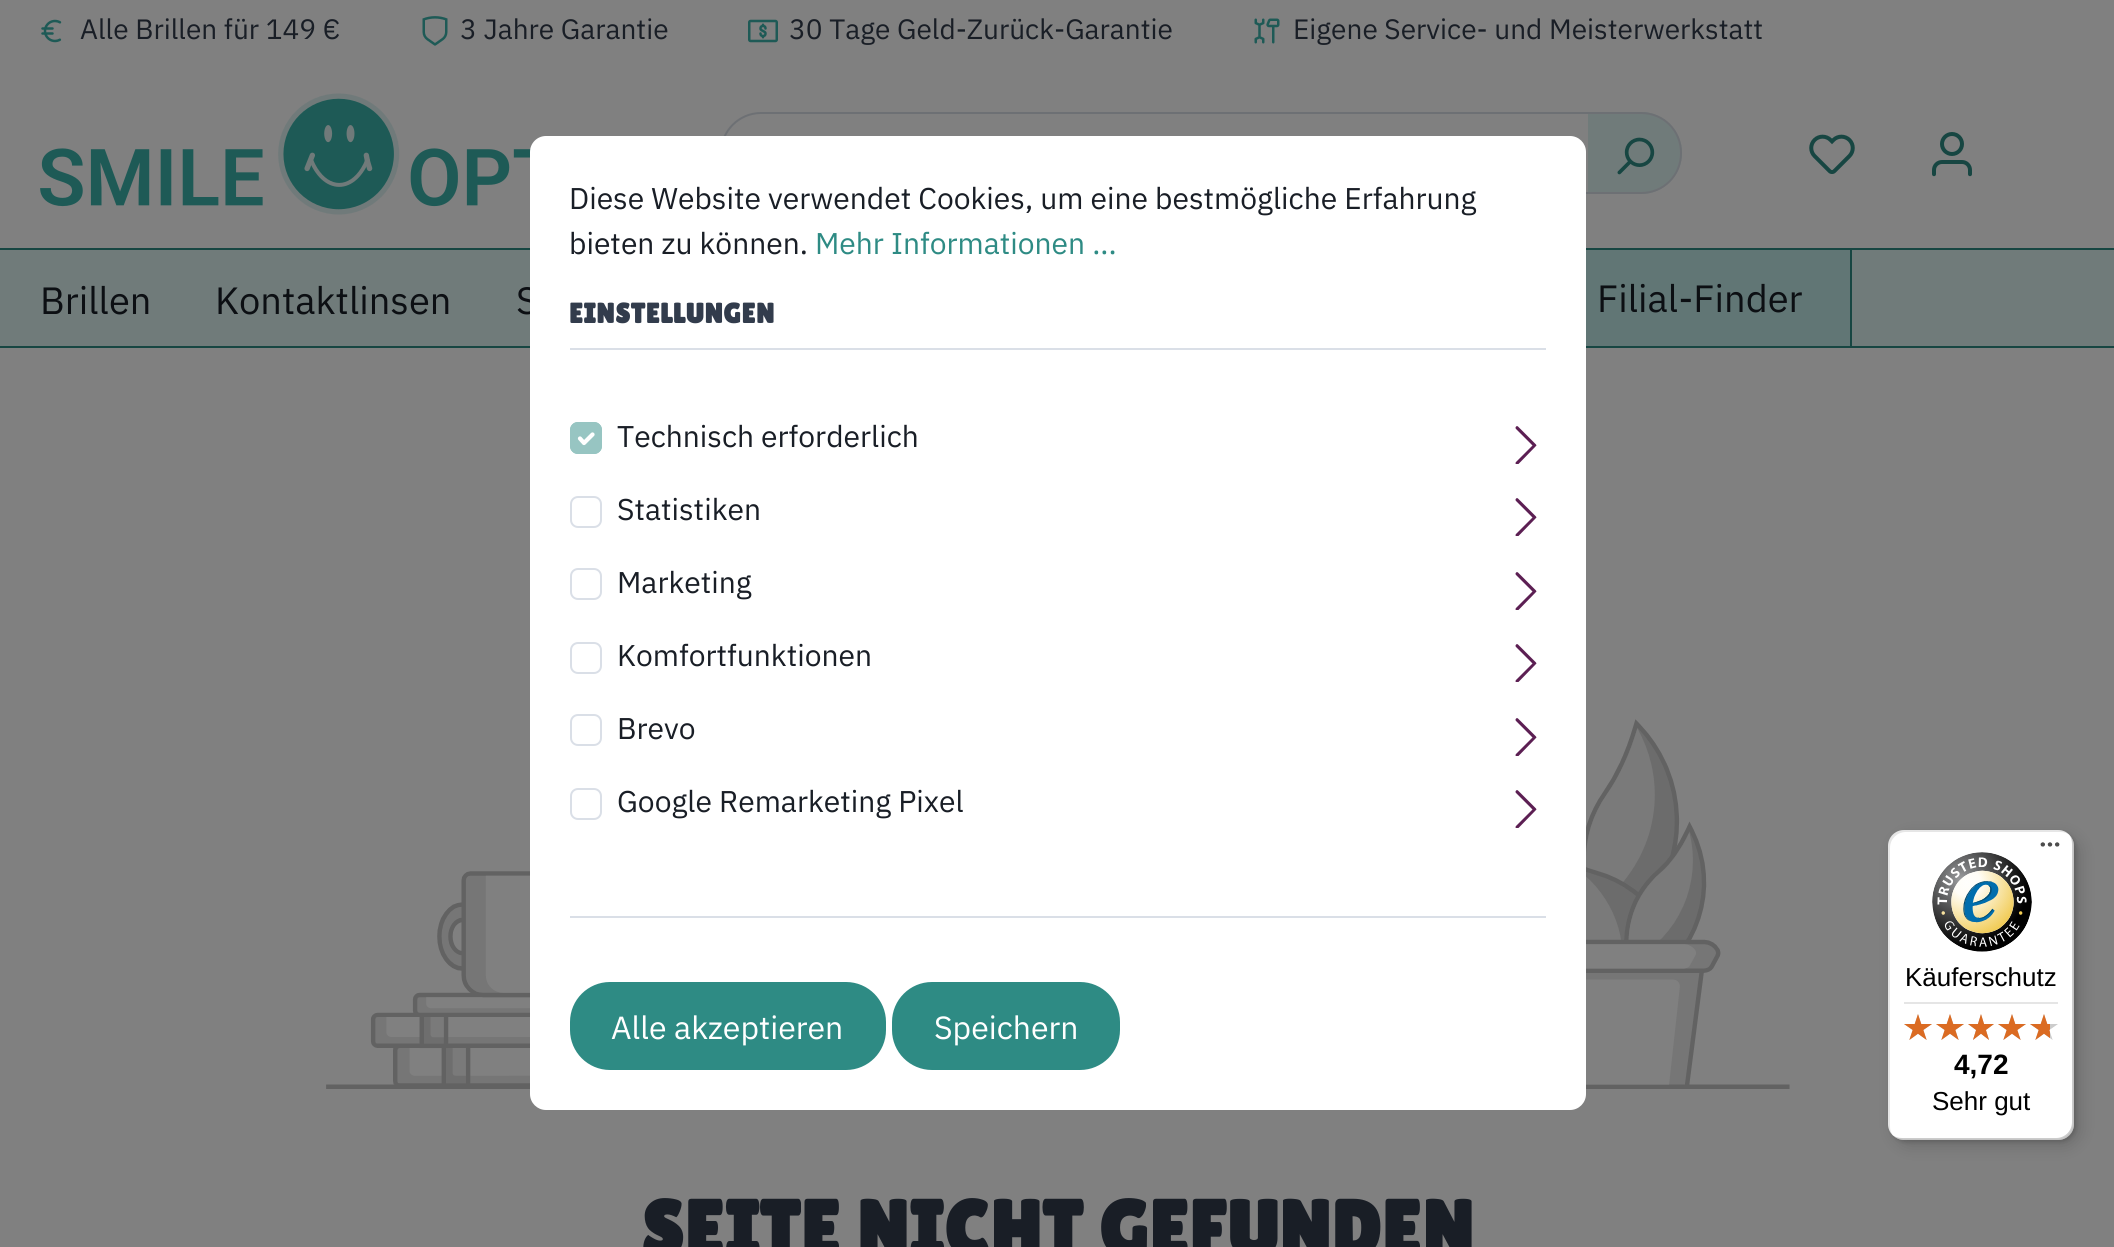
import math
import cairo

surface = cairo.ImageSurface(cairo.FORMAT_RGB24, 2114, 1247)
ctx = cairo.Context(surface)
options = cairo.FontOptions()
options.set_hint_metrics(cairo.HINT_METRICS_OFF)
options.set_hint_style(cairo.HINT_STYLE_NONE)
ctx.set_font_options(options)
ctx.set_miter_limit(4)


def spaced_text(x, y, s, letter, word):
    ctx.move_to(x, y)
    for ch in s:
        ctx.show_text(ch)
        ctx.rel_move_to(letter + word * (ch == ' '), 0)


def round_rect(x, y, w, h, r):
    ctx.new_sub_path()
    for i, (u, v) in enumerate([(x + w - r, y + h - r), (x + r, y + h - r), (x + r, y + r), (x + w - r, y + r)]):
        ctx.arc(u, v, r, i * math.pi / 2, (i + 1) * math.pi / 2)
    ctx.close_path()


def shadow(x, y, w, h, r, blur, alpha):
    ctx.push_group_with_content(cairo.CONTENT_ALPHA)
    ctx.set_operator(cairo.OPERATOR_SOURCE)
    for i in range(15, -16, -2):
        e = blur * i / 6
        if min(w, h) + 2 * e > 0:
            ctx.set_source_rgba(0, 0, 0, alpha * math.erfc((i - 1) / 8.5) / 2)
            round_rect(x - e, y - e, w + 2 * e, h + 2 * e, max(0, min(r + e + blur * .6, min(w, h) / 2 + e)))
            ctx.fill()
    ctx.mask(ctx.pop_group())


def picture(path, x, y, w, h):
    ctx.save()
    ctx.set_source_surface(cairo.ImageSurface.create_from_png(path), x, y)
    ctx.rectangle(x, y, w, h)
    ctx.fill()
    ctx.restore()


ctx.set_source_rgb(0.502, 0.502, 0.502)
ctx.paint()
picture("img1.png", 41, 19, 21, 24)
ctx.select_font_face("IBM Plex Sans")
ctx.set_font_size(28)
ctx.set_source_rgb(0.098, 0.118, 0.149)
ctx.move_to(80, 39)
ctx.show_text("Alle Brillen für 149 €")
picture("img2.png", 422, 16, 26, 30)
ctx.move_to(460, 39)
ctx.show_text("3 Jahre Garantie")
picture("img3.png", 748, 19, 30, 24)
ctx.move_to(789, 39)
ctx.show_text("30 Tage Geld-Zurück-Garantie")
picture("img4.png", 1254, 18, 26, 26)
ctx.move_to(1293, 39)
ctx.show_text("Eigene Service- und Meisterwerkstatt")
picture("img5.png", 40, 93, 491, 122)
ctx.new_path()
ctx.move_to(761, 113)
ctx.line_to(1589, 113)
ctx.line_to(1589, 193)
ctx.line_to(761, 193)
ctx.curve_to(739, 193, 721, 175, 721, 153)
ctx.curve_to(721, 131, 739, 113, 761, 113)
ctx.close_path()
ctx.set_source_rgb(0.427, 0.439, 0.455)
ctx.stroke()
ctx.set_source_rgb(0.439, 0.482, 0.478)
ctx.new_path()
ctx.move_to(1588, 112)
ctx.line_to(1641, 112)
ctx.curve_to(1663.5, 112, 1682, 130.5, 1682, 153)
ctx.curve_to(1682, 175.5, 1663.5, 194, 1641, 194)
ctx.line_to(1588, 194)
ctx.close_path()
ctx.fill()
ctx.set_source_rgb(0.427, 0.439, 0.455)
ctx.set_fill_rule(cairo.FILL_RULE_EVEN_ODD)
ctx.new_path()
ctx.move_to(1588, 112)
ctx.line_to(1641, 112)
ctx.curve_to(1664, 112, 1682, 130, 1682, 153)
ctx.curve_to(1682, 176, 1664, 194, 1641, 194)
ctx.line_to(1588, 194)
ctx.close_path()
ctx.move_to(1588, 114)
ctx.line_to(1641, 114)
ctx.curve_to(1663, 114, 1680, 131, 1680, 153)
ctx.curve_to(1680, 175, 1663, 192, 1641, 192)
ctx.line_to(1588, 192)
ctx.close_path()
ctx.fill()
picture("img6.png", 1617, 137, 38, 38)
picture("img7.png", 1809, 134, 46, 40)
picture("img8.png", 1932, 132, 40, 45)
ctx.set_source_rgb(0.439, 0.482, 0.478)
ctx.rectangle(0, 250, 2114, 96)
ctx.fill()
ctx.set_source_rgb(0.09, 0.275, 0.259)
ctx.rectangle(0, 248, 2114, 2)
ctx.fill()
ctx.rectangle(0, 346, 2114, 2)
ctx.fill()
ctx.set_font_size(38)
ctx.set_source_rgb(0.047, 0.059, 0.075)
ctx.move_to(516, 314)
ctx.show_text("S")
picture("img16.png", 326, 719, 1464, 370)
ctx.set_source_rgb(1, 1, 1)
round_rect(530, 136, 1056, 974, 16)
ctx.fill()
ctx.set_source_rgb(0.855, 0.875, 0.906)
ctx.rectangle(570, 348, 976, 2)
ctx.fill()
ctx.set_font_size(30)
ctx.set_source_rgb(0.098, 0.118, 0.149)
ctx.move_to(569, 209)
ctx.show_text("Diese Website verwendet Cookies, um eine bestmögliche Erfahrung")
ctx.move_to(569, 254)
ctx.show_text("bieten zu können.")
ctx.set_source_rgb(0.18, 0.545, 0.518)
ctx.move_to(815, 254)
ctx.show_text("Mehr Informationen ...")
ctx.select_font_face("Lilita One", cairo.FONT_SLANT_NORMAL, cairo.FONT_WEIGHT_BOLD)
ctx.set_font_size(28)
ctx.set_source_rgb(0.196, 0.235, 0.298)
spaced_text(569, 323, "EINSTELLUNGEN", 0.75, 0)
ctx.set_source_rgb(0.855, 0.875, 0.906)
ctx.rectangle(570, 916, 976, 2)
ctx.fill()
ctx.set_source_rgb(0.592, 0.773, 0.761)
round_rect(570, 422, 32, 32, 8)
ctx.fill()
ctx.new_path()
ctx.move_to(580, 438.5)
ctx.line_to(584, 443)
ctx.line_to(592.5, 434.5)
ctx.set_source_rgb(1, 1, 1)
ctx.set_line_width(4.2)
ctx.set_line_cap(cairo.LINE_CAP_ROUND)
ctx.set_line_join(cairo.LINE_JOIN_ROUND)
ctx.stroke()
round_rect(571, 423, 30, 30, 7)
ctx.set_source_rgb(0.592, 0.773, 0.761)
ctx.set_line_width(2)
ctx.set_line_cap(cairo.LINE_CAP_BUTT)
ctx.set_line_join(cairo.LINE_JOIN_MITER)
ctx.stroke()
ctx.select_font_face("IBM Plex Sans")
ctx.set_font_size(30)
ctx.set_source_rgb(0.098, 0.118, 0.149)
ctx.move_to(617, 447)
ctx.show_text("Technisch erforderlich")
ctx.save()
ctx.set_fill_rule(cairo.FILL_RULE_WINDING)
ctx.rectangle(1508, 426, 38, 38)
ctx.clip()
ctx.set_source_rgb(0.361, 0.122, 0.325)
ctx.set_fill_rule(cairo.FILL_RULE_EVEN_ODD)
ctx.new_path()
ctx.move_to(1532.5, 445.5)
ctx.line_to(1516, 462)
ctx.curve_to(1515, 463, 1515.5, 464.5, 1517, 464.5)
ctx.line_to(1518, 464.5)
ctx.line_to(1536, 446)
ctx.line_to(1536.5, 445.5)
ctx.line_to(1536, 444.5)
ctx.line_to(1518, 426.5)
ctx.line_to(1517, 426)
ctx.curve_to(1515.5, 426.5, 1515, 428, 1516, 429)
ctx.close_path()
ctx.fill()
ctx.restore()
round_rect(571, 497, 30, 30, 7)
ctx.set_source_rgb(0.855, 0.875, 0.906)
ctx.stroke()
ctx.set_source_rgb(0.098, 0.118, 0.149)
ctx.move_to(617, 520)
ctx.show_text("Statistiken")
ctx.save()
ctx.set_fill_rule(cairo.FILL_RULE_WINDING)
ctx.rectangle(1508, 498, 38, 38)
ctx.clip()
ctx.set_source_rgb(0.361, 0.122, 0.325)
ctx.set_fill_rule(cairo.FILL_RULE_EVEN_ODD)
ctx.new_path()
ctx.move_to(1532.5, 517.5)
ctx.line_to(1516, 534)
ctx.curve_to(1515, 535, 1515.5, 536.5, 1517, 536.5)
ctx.line_to(1518, 536.5)
ctx.line_to(1536, 518)
ctx.line_to(1536.5, 517.5)
ctx.line_to(1536, 516.5)
ctx.line_to(1518, 498.5)
ctx.line_to(1517, 498)
ctx.curve_to(1515.5, 498.5, 1515, 500, 1516, 501)
ctx.close_path()
ctx.fill()
ctx.restore()
round_rect(571, 569, 30, 30, 7)
ctx.set_source_rgb(0.855, 0.875, 0.906)
ctx.stroke()
ctx.set_source_rgb(0.098, 0.118, 0.149)
ctx.move_to(617, 593)
ctx.show_text("Marketing")
ctx.save()
ctx.set_fill_rule(cairo.FILL_RULE_WINDING)
ctx.rectangle(1508, 572, 38, 38)
ctx.clip()
ctx.set_source_rgb(0.361, 0.122, 0.325)
ctx.set_fill_rule(cairo.FILL_RULE_EVEN_ODD)
ctx.new_path()
ctx.move_to(1532.5, 591.5)
ctx.line_to(1516, 608)
ctx.curve_to(1515, 609, 1515.5, 610.5, 1517, 610.5)
ctx.line_to(1518, 610.5)
ctx.line_to(1536, 592)
ctx.line_to(1536.5, 591.5)
ctx.line_to(1536, 590.5)
ctx.line_to(1518, 572.5)
ctx.line_to(1517, 572)
ctx.curve_to(1515.5, 572.5, 1515, 574, 1516, 575)
ctx.close_path()
ctx.fill()
ctx.restore()
round_rect(571, 643, 30, 30, 7)
ctx.set_source_rgb(0.855, 0.875, 0.906)
ctx.stroke()
ctx.set_source_rgb(0.098, 0.118, 0.149)
ctx.move_to(617, 666)
ctx.show_text("Komfortfunktionen")
ctx.save()
ctx.set_fill_rule(cairo.FILL_RULE_WINDING)
ctx.rectangle(1508, 644, 38, 38)
ctx.clip()
ctx.set_source_rgb(0.361, 0.122, 0.325)
ctx.set_fill_rule(cairo.FILL_RULE_EVEN_ODD)
ctx.new_path()
ctx.move_to(1532.5, 663.5)
ctx.line_to(1516, 680)
ctx.curve_to(1515, 681, 1515.5, 682.5, 1517, 682.5)
ctx.line_to(1518, 682.5)
ctx.line_to(1536, 664)
ctx.line_to(1536.5, 663.5)
ctx.line_to(1536, 662.5)
ctx.line_to(1518, 644.5)
ctx.line_to(1517, 644)
ctx.curve_to(1515.5, 644.5, 1515, 646, 1516, 647)
ctx.close_path()
ctx.fill()
ctx.restore()
round_rect(571, 715, 30, 30, 7)
ctx.set_source_rgb(0.855, 0.875, 0.906)
ctx.stroke()
ctx.set_source_rgb(0.098, 0.118, 0.149)
ctx.move_to(617, 739)
ctx.show_text("Brevo")
ctx.save()
ctx.set_fill_rule(cairo.FILL_RULE_WINDING)
ctx.rectangle(1508, 718, 38, 38)
ctx.clip()
ctx.set_source_rgb(0.361, 0.122, 0.325)
ctx.set_fill_rule(cairo.FILL_RULE_EVEN_ODD)
ctx.new_path()
ctx.move_to(1532.5, 737.5)
ctx.line_to(1516, 754)
ctx.curve_to(1515, 755, 1515.5, 756.5, 1517, 756.5)
ctx.line_to(1518, 756.5)
ctx.line_to(1536, 738)
ctx.line_to(1536.5, 737.5)
ctx.line_to(1536, 736.5)
ctx.line_to(1518, 718.5)
ctx.line_to(1517, 718)
ctx.curve_to(1515.5, 718.5, 1515, 720, 1516, 721)
ctx.close_path()
ctx.fill()
ctx.restore()
round_rect(571, 789, 30, 30, 7)
ctx.set_source_rgb(0.855, 0.875, 0.906)
ctx.stroke()
ctx.set_source_rgb(0.098, 0.118, 0.149)
ctx.move_to(617, 812)
ctx.show_text("Google Remarketing Pixel")
ctx.save()
ctx.set_fill_rule(cairo.FILL_RULE_WINDING)
ctx.rectangle(1508, 790, 38, 38)
ctx.clip()
ctx.set_source_rgb(0.361, 0.122, 0.325)
ctx.set_fill_rule(cairo.FILL_RULE_EVEN_ODD)
ctx.new_path()
ctx.move_to(1532.5, 809.5)
ctx.line_to(1516, 826)
ctx.curve_to(1515, 827, 1515.5, 828.5, 1517, 828.5)
ctx.line_to(1518, 828.5)
ctx.line_to(1536, 810)
ctx.line_to(1536.5, 809.5)
ctx.line_to(1536, 808.5)
ctx.line_to(1518, 790.5)
ctx.line_to(1517, 790)
ctx.curve_to(1515.5, 790.5, 1515, 792, 1516, 793)
ctx.close_path()
ctx.fill()
ctx.restore()
ctx.set_source_rgb(0.18, 0.545, 0.518)
round_rect(571, 983, 314, 86, 39)
ctx.fill_preserve()
ctx.stroke()
ctx.set_font_size(32)
ctx.set_source_rgb(1, 1, 1)
ctx.move_to(611, 1039)
ctx.show_text("Alle akzeptieren")
ctx.set_source_rgb(0.18, 0.545, 0.518)
round_rect(893, 983, 226, 86, 39)
ctx.fill_preserve()
ctx.stroke()
ctx.set_source_rgb(1, 1, 1)
ctx.move_to(934, 1039)
ctx.show_text("Speichern")
ctx.set_font_size(38)
ctx.set_source_rgb(0.047, 0.059, 0.075)
ctx.move_to(40, 314)
ctx.show_text("Brillen")
ctx.move_to(215, 314)
ctx.show_text("Kontaktlinsen")
ctx.set_source_rgb(0.38, 0.463, 0.459)
ctx.rectangle(1586, 250, 264, 96)
ctx.fill()
ctx.set_source_rgb(0.09, 0.275, 0.259)
ctx.rectangle(1850, 250, 2, 96)
ctx.fill()
ctx.set_source_rgb(0.047, 0.059, 0.075)
ctx.move_to(1597, 312)
ctx.show_text("Filial-Finder")
ctx.set_source_rgb(0, 0, 0)
shadow(1894, 836, 186, 310, 16, 8, 0.15)
shadow(1890, 832, 186, 310, 16, 2, 0.15)
ctx.set_source_rgb(1, 1, 1)
round_rect(1888, 830, 186, 310, 16)
ctx.fill()
ctx.set_source_rgba(0, 0, 0, 0.1)
ctx.set_fill_rule(cairo.FILL_RULE_WINDING)
ctx.new_path()
ctx.move_to(1906, 832)
ctx.line_to(2060, 832)
ctx.curve_to(2064, 832, 2067, 833, 2070, 835)
ctx.curve_to(2067, 832, 2063, 830, 2058, 830)
ctx.line_to(1904, 830)
ctx.curve_to(1895, 830, 1888, 837, 1888, 846)
ctx.line_to(1888, 1124)
ctx.curve_to(1888, 1129, 1890, 1133, 1893, 1136)
ctx.curve_to(1891, 1133, 1890, 1130, 1890, 1126)
ctx.line_to(1890, 848)
ctx.curve_to(1890, 839, 1897, 832, 1906, 832)
ctx.close_path()
ctx.fill()
ctx.set_source_rgba(0, 0, 0, 0.2)
ctx.new_path()
ctx.move_to(1892, 1135)
ctx.curve_to(1895, 1138, 1899, 1140, 1904, 1140)
ctx.line_to(2058, 1140)
ctx.curve_to(2067, 1140, 2074, 1133, 2074, 1124)
ctx.line_to(2074, 846)
ctx.curve_to(2074, 841, 2072, 837, 2069, 834)
ctx.curve_to(2071, 837, 2072, 840, 2072, 844)
ctx.line_to(2072, 1122)
ctx.curve_to(2072, 1131, 2065, 1138, 2056, 1138)
ctx.line_to(1902, 1138)
ctx.curve_to(1898, 1138, 1895, 1137, 1892, 1135)
ctx.close_path()
ctx.fill()
ctx.set_source_rgba(0.196, 0.196, 0.196, 0.2)
ctx.new_path()
ctx.move_to(1893, 1135)
ctx.curve_to(1896, 1138, 1900, 1140, 1904, 1140)
ctx.line_to(2058, 1140)
ctx.curve_to(2067, 1140, 2074, 1133, 2074, 1124)
ctx.line_to(2074, 846)
ctx.curve_to(2074, 842, 2072, 838, 2069, 835)
ctx.curve_to(2072, 838, 2073, 841, 2073, 845)
ctx.line_to(2073, 1123)
ctx.curve_to(2073, 1132, 2066, 1139, 2057, 1139)
ctx.line_to(1903, 1139)
ctx.curve_to(1899, 1139, 1896, 1138, 1893, 1135)
ctx.close_path()
ctx.fill()
ctx.set_source_rgba(1, 1, 1, 0.3)
ctx.new_path()
ctx.move_to(1893, 1135)
ctx.curve_to(1896, 1138, 1900, 1140, 1904, 1140)
ctx.line_to(2058, 1140)
ctx.curve_to(2067, 1140, 2074, 1133, 2074, 1124)
ctx.line_to(2074, 846)
ctx.curve_to(2074, 842, 2072, 838, 2069, 835)
ctx.curve_to(2072, 838, 2073, 841, 2073, 845)
ctx.line_to(2073, 1123)
ctx.curve_to(2073, 1132, 2066, 1139, 2057, 1139)
ctx.line_to(1903, 1139)
ctx.curve_to(1899, 1139, 1896, 1138, 1893, 1135)
ctx.close_path()
ctx.fill()
picture("img9.png", 2040, 842, 20, 5)
picture("img10.png", 1932, 852, 100, 100)
ctx.select_font_face("Liberation Sans")
ctx.set_font_size(26)
ctx.set_source_rgb(0, 0, 0)
ctx.move_to(1905, 986)
ctx.show_text("Käuferschutz")
ctx.set_source_rgb(0.898, 0.898, 0.898)
ctx.rectangle(1904, 1002, 154, 2)
ctx.fill()
picture("img11.png", 1904, 1014, 28, 26)
picture("img11.png", 1936, 1014, 28, 26)
picture("img12.png", 1968, 1014, 26, 26)
picture("img11.png", 1998, 1014, 28, 26)
picture("img11.png", 2030, 1014, 28, 26)
picture("img13.png", 1904, 1014, 28, 26)
picture("img13.png", 1936, 1014, 28, 26)
picture("img14.png", 1968, 1014, 26, 26)
picture("img13.png", 1998, 1014, 28, 26)
picture("img15.png", 2030, 1014, 20, 26)
ctx.select_font_face("Liberation Sans", cairo.FONT_SLANT_NORMAL, cairo.FONT_WEIGHT_BOLD)
ctx.set_font_size(28)
ctx.set_source_rgb(0, 0, 0)
ctx.move_to(1954, 1074)
ctx.show_text("4,72")
ctx.select_font_face("Liberation Sans")
ctx.set_font_size(26)
ctx.move_to(1932, 1110)
ctx.show_text("Sehr gut")
ctx.select_font_face("Lilita One", cairo.FONT_SLANT_NORMAL, cairo.FONT_WEIGHT_BOLD)
ctx.set_font_size(80)
ctx.set_source_rgb(0.098, 0.118, 0.149)
spaced_text(641, 1257, "SEITE NICHT GEFUNDEN", 0.75, 0)
surface.write_to_png("page.png")
